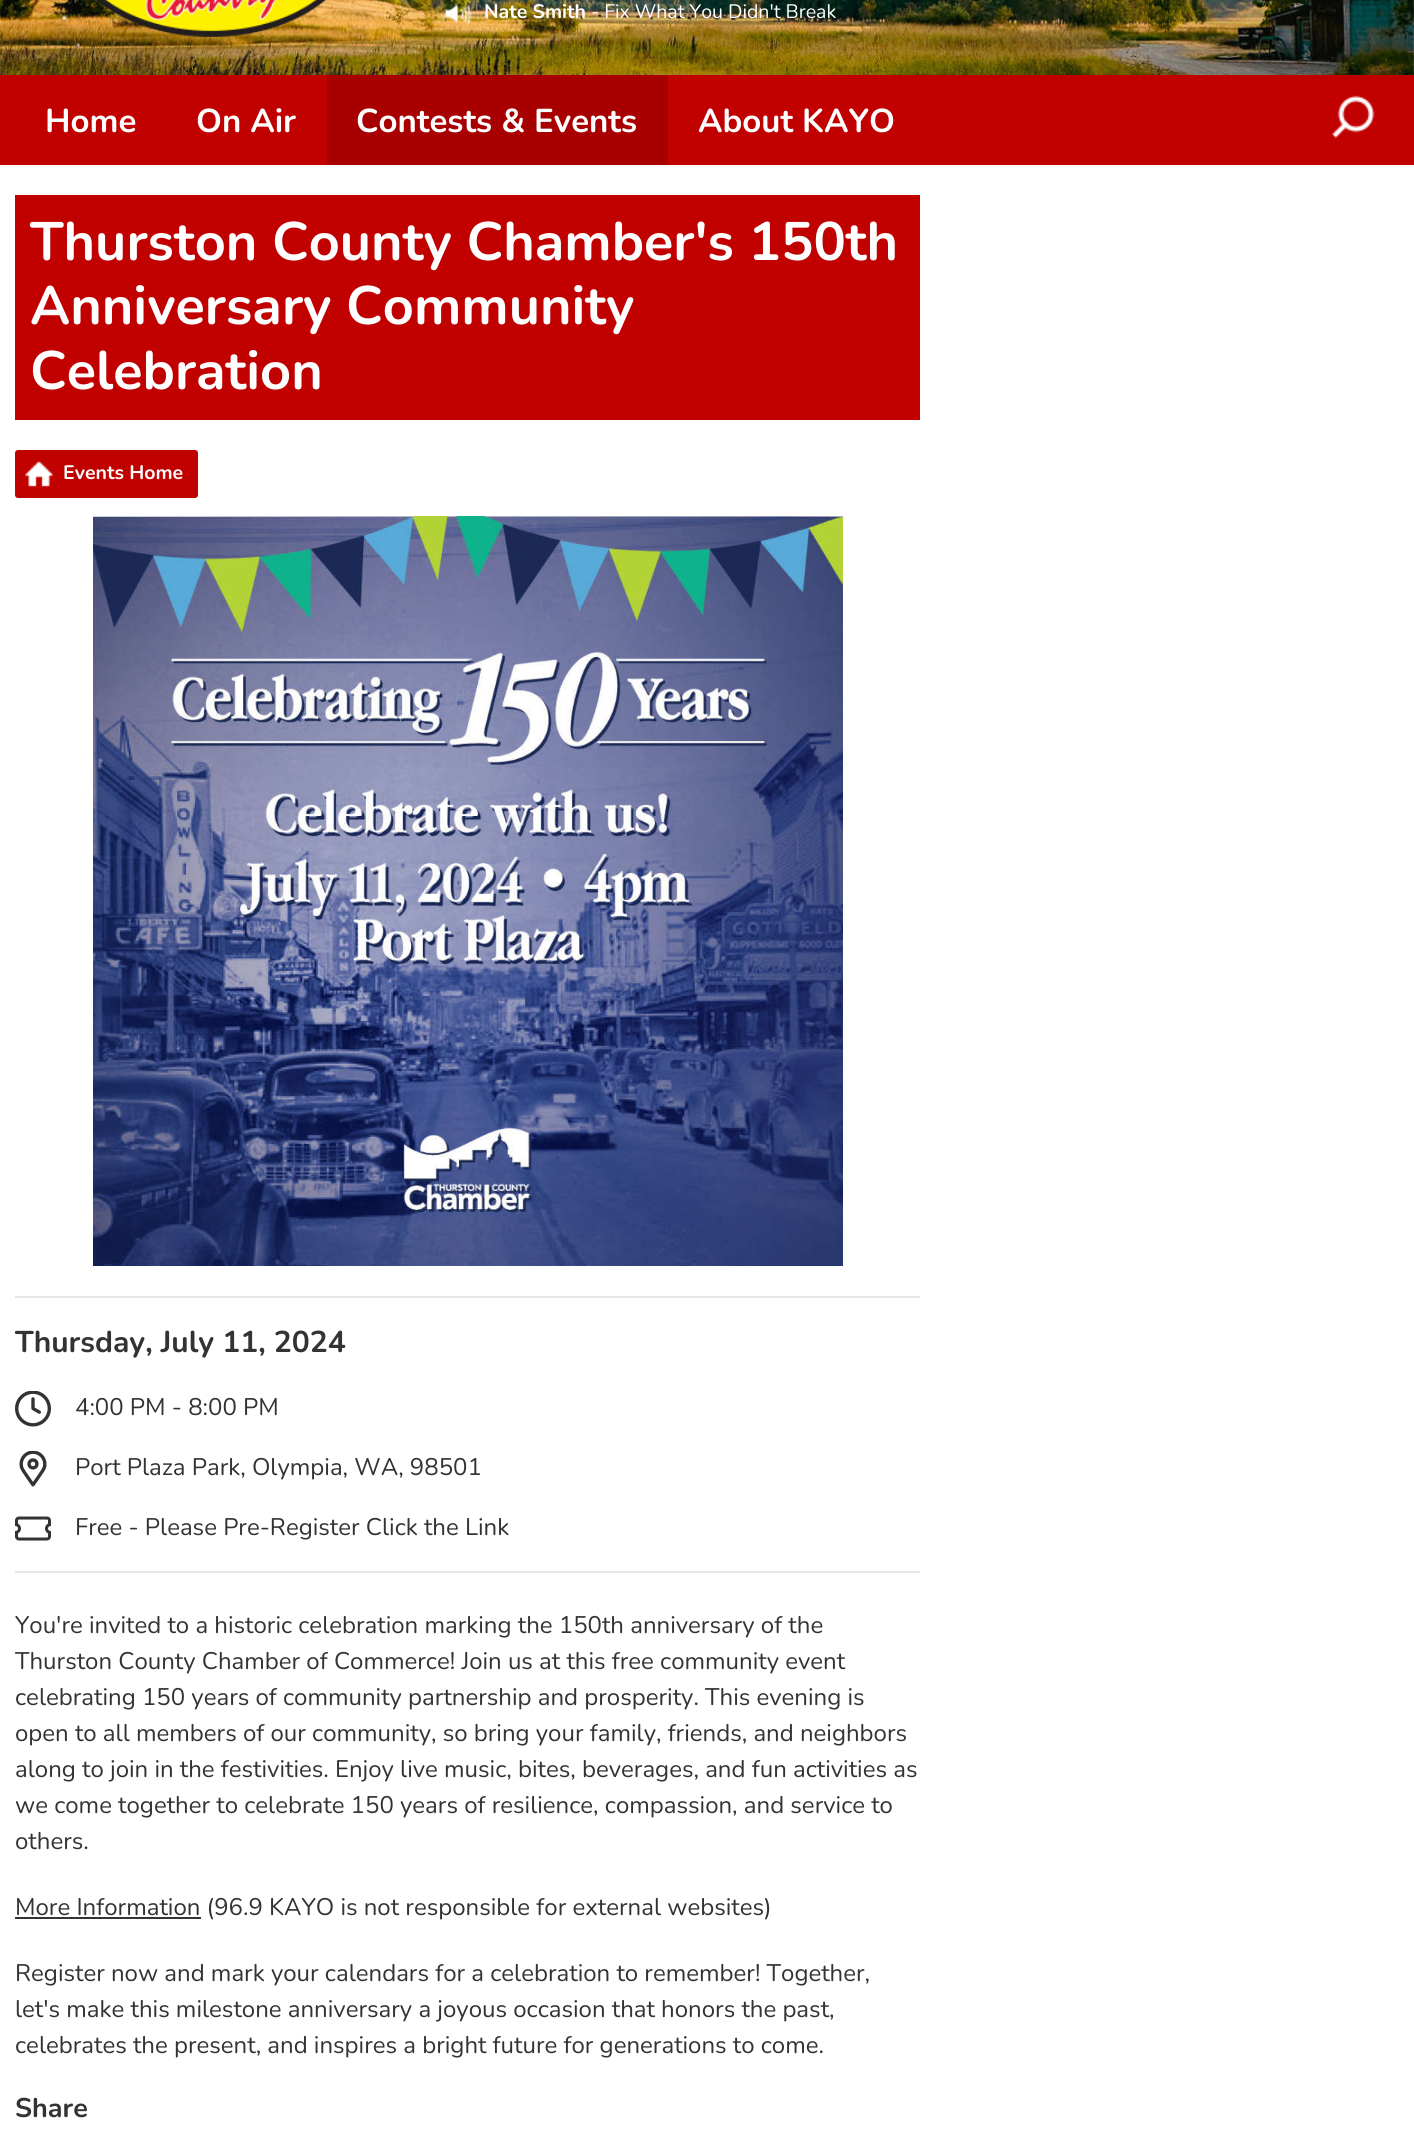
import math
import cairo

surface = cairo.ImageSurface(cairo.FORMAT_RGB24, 1414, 2156)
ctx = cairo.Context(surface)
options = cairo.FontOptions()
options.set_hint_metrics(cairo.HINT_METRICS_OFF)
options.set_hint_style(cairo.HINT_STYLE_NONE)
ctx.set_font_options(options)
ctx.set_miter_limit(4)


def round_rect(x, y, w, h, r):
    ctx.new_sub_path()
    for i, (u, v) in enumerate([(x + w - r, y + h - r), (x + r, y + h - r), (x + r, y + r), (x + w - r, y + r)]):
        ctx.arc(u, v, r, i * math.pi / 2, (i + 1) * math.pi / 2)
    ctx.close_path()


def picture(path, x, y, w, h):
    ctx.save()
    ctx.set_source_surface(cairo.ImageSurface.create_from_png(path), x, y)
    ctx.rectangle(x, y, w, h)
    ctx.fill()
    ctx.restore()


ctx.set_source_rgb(1, 1, 1)
ctx.paint()
picture("img1.png", 0, 0, 1414, 75)
picture("img2.png", 96, 0, 231, 37)
picture("img3.png", 445, 4, 27, 21)
ctx.select_font_face("Nunito", cairo.FONT_SLANT_NORMAL, cairo.FONT_WEIGHT_BOLD)
ctx.set_font_size(19.5)
ctx.set_source_rgb(1, 1, 1)
ctx.move_to(484, 18)
ctx.show_text("Nate Smith")
ctx.select_font_face("Nunito")
ctx.move_to(591, 18)
ctx.show_text("- Fix What You Didn't Break")
ctx.set_source_rgb(0.757, 0, 0)
ctx.rectangle(0, 75, 1414, 90)
ctx.fill()
ctx.select_font_face("Nunito", cairo.FONT_SLANT_NORMAL, cairo.FONT_WEIGHT_BOLD)
ctx.set_font_size(33)
ctx.set_source_rgb(1, 1, 1)
ctx.move_to(45, 132)
ctx.show_text("Home")
ctx.move_to(196, 132)
ctx.show_text("On Air")
ctx.set_source_rgb(0.659, 0, 0)
ctx.rectangle(327, 75, 341, 90)
ctx.fill()
ctx.set_source_rgb(1, 1, 1)
ctx.move_to(356, 132)
ctx.show_text("Contests & Events")
ctx.move_to(698, 132)
ctx.show_text("About KAYO")
picture("img4.png", 1331, 95, 44, 44)
ctx.set_source_rgb(0.757, 0, 0)
ctx.rectangle(15, 195, 905, 225)
ctx.fill()
ctx.set_font_size(54)
ctx.set_source_rgb(1, 1, 1)
ctx.move_to(30, 260)
ctx.show_text("Thurston County Chamber's 150th")
ctx.move_to(30, 324)
ctx.show_text("Anniversary Community")
ctx.move_to(30, 389)
ctx.show_text("Celebration")
ctx.set_source_rgb(0.757, 0, 0)
round_rect(15, 450, 183, 48, 3)
ctx.fill()
picture("img5.png", 25, 461, 28, 26)
ctx.set_font_size(19.5)
ctx.set_source_rgb(1, 1, 1)
ctx.move_to(63, 479)
ctx.show_text("Events Home")
picture("img6.png", 93, 516, 750, 750)
ctx.set_source_rgb(0.902, 0.902, 0.902)
ctx.rectangle(15, 1296, 905, 2)
ctx.fill()
ctx.rectangle(15, 1571, 905, 2)
ctx.fill()
ctx.set_font_size(30)
ctx.set_source_rgb(0.2, 0.2, 0.2)
ctx.move_to(15, 1352)
ctx.show_text("Thursday, July 11, 2024")
picture("img7.png", 15, 1391, 36, 36)
ctx.select_font_face("Nunito")
ctx.set_font_size(24)
ctx.move_to(75, 1415)
ctx.show_text("4:00 PM - 8:00 PM")
picture("img8.png", 19, 1451, 28, 36)
ctx.move_to(75, 1475)
ctx.show_text("Port Plaza Park, Olympia, WA, 98501")
picture("img9.png", 15, 1516, 36, 25)
ctx.move_to(75, 1535)
ctx.show_text("Free - Please Pre-Register Click the Link")
ctx.move_to(15, 1633)
ctx.show_text("You're invited to a historic celebration marking the 150th anniversary of the")
ctx.move_to(15, 1669)
ctx.show_text("Thurston County Chamber of Commerce! Join us at this free community event")
ctx.move_to(15, 1705)
ctx.show_text("celebrating 150 years of community partnership and prosperity. This evening is")
ctx.move_to(15, 1741)
ctx.show_text("open to all members of our community, so bring your family, friends, and neighbors")
ctx.move_to(15, 1777)
ctx.show_text("along to join in the festivities. Enjoy live music, bites, beverages, and fun activities as")
ctx.move_to(15, 1813)
ctx.show_text("we come together to celebrate 150 years of resilience, compassion, and service to")
ctx.move_to(15, 1849)
ctx.show_text("others.")
ctx.rectangle(15, 1917, 186, 2)
ctx.fill()
ctx.move_to(15, 1915)
ctx.show_text("More Information (96.9 KAYO is not responsible for external websites)")
ctx.move_to(15, 1981)
ctx.show_text("Register now and mark your calendars for a celebration to remember! Together,")
ctx.move_to(15, 2017)
ctx.show_text("let's make this milestone anniversary a joyous occasion that honors the past,")
ctx.move_to(15, 2053)
ctx.show_text("celebrates the present, and inspires a bright future for generations to come.")
ctx.select_font_face("Nunito", cairo.FONT_SLANT_NORMAL, cairo.FONT_WEIGHT_BOLD)
ctx.set_font_size(27)
ctx.move_to(15, 2117)
ctx.show_text("Share")
surface.write_to_png("page.png")
